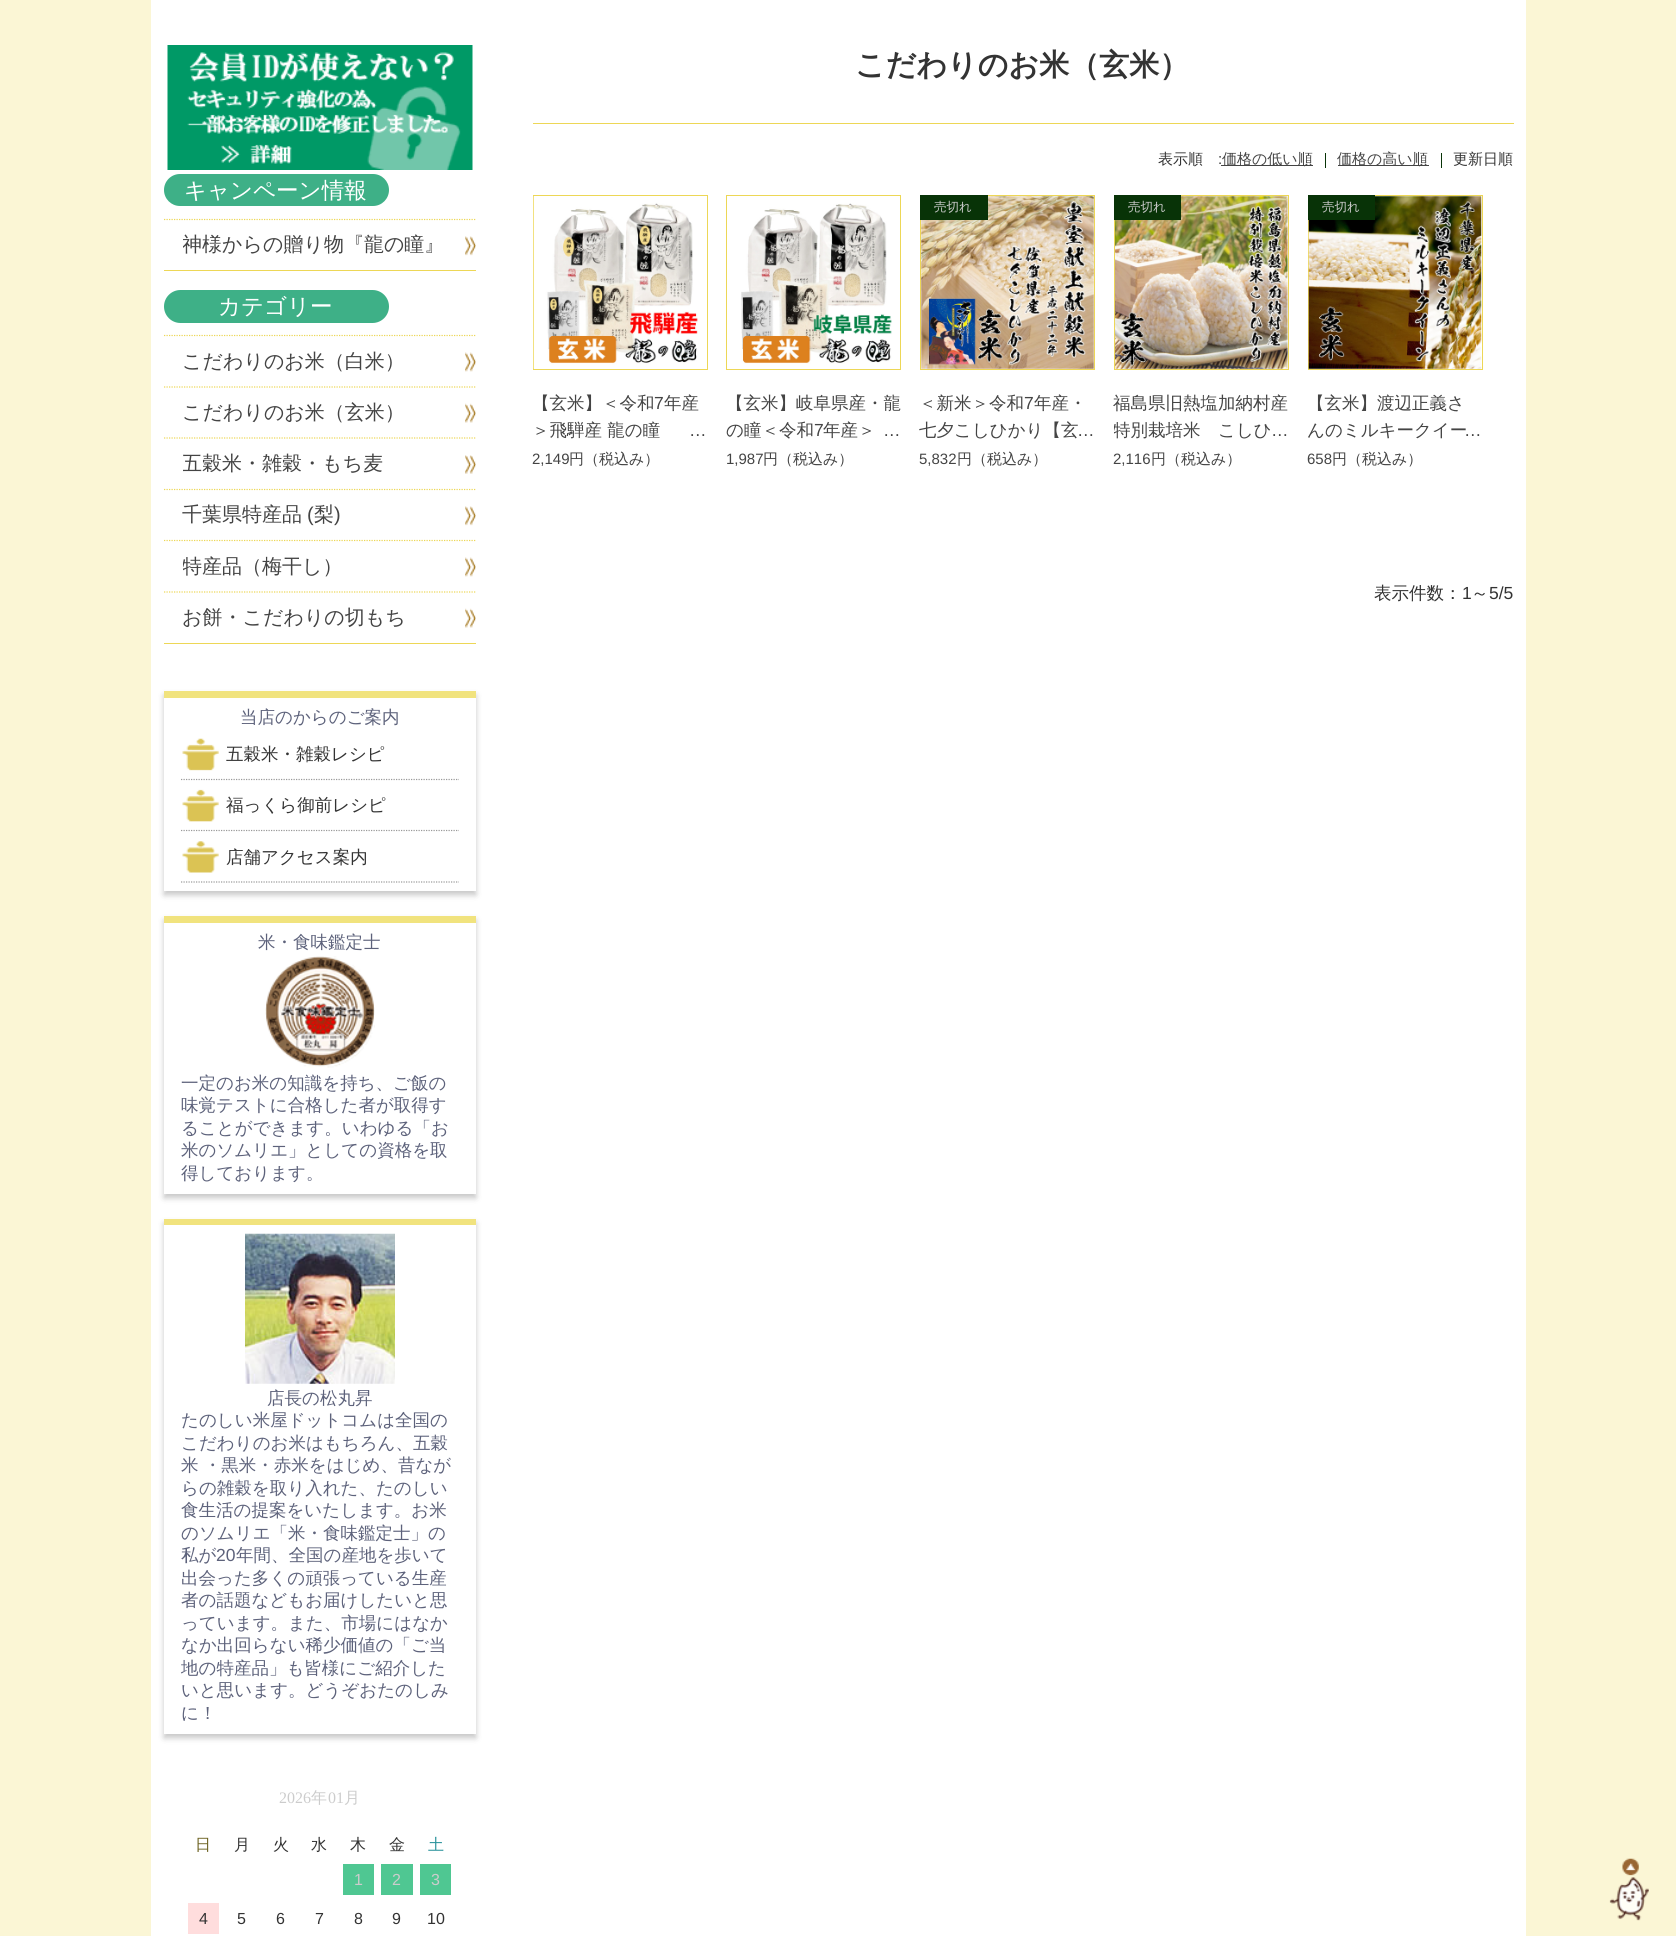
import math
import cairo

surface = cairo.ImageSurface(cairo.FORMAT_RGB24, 1676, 1936)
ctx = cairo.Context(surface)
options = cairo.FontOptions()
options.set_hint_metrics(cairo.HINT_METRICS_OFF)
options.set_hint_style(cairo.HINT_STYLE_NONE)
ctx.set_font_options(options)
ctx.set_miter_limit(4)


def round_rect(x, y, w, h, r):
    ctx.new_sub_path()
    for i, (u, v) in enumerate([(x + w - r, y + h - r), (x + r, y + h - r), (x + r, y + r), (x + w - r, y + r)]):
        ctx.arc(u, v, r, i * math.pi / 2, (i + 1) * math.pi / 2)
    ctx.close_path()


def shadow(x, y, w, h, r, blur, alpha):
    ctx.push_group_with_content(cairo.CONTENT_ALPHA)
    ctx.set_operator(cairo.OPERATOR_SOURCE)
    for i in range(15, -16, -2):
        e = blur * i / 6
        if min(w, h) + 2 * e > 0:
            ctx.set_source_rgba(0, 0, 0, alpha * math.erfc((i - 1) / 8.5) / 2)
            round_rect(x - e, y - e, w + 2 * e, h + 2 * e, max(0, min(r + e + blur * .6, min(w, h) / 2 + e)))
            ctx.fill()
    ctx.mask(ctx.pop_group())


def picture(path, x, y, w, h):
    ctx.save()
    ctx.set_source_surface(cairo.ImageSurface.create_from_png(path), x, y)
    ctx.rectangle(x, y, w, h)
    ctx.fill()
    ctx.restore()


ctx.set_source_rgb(0.984, 0.961, 0.835)
ctx.paint()
ctx.set_source_rgb(1, 1, 1)
ctx.rectangle(151, 0, 1375, 1936)
ctx.fill()
picture("img1.png", 167, 45, 306, 125)
ctx.set_source_rgb(0.929, 0.843, 0.337)
ctx.rectangle(164, 270, 312, 1)
ctx.fill()
ctx.set_source_rgb(0.243, 0.69, 0.529)
round_rect(164, 174, 225, 32, 16)
ctx.fill()
ctx.select_font_face("WenQuanYi Zen Hei Medium")
ctx.set_font_size(22.5)
ctx.set_source_rgb(1, 1, 1)
ctx.move_to(184, 198)
ctx.show_text("キャンペーン情報")
ctx.new_path()
ctx.move_to(164, 219.5)
ctx.line_to(476, 219.5)
ctx.set_source_rgb(0.929, 0.843, 0.337)
ctx.set_line_width(1.2)
ctx.set_dash([1.25, 1.25])
ctx.stroke()
ctx.save()
ctx.rectangle(183, 220, 293, 50)
ctx.clip()
ctx.set_font_size(20)
ctx.set_source_rgb(0.267, 0.267, 0.267)
ctx.move_to(182, 251)
ctx.show_text("神様からの贈り物『龍の瞳』")
ctx.restore()
picture("img2.png", 465, 236, 11, 20)
ctx.rectangle(164, 643, 312, 1)
ctx.fill()
ctx.set_source_rgb(0.243, 0.69, 0.529)
round_rect(164, 290, 225, 33, 16.5)
ctx.fill()
ctx.set_source_rgb(1, 1, 1)
ctx.move_to(218, 314)
ctx.show_text("カテゴリー")
ctx.new_path()
ctx.move_to(164, 335.5)
ctx.line_to(476, 335.5)
ctx.set_source_rgb(0.929, 0.843, 0.337)
ctx.stroke()
ctx.set_font_size(20)
ctx.set_source_rgb(0.267, 0.267, 0.267)
ctx.move_to(182, 368)
ctx.show_text("こだわりのお米（白米）")
picture("img3.png", 465, 352, 11, 20)
ctx.new_path()
ctx.move_to(164, 387)
ctx.line_to(476, 387)
ctx.set_source_rgb(0.929, 0.843, 0.337)
ctx.stroke()
ctx.set_source_rgb(0.267, 0.267, 0.267)
ctx.move_to(182, 419)
ctx.show_text("こだわりのお米（玄米）")
picture("img4.png", 465, 403, 11, 20)
ctx.new_path()
ctx.move_to(164, 438)
ctx.line_to(476, 438)
ctx.set_source_rgb(0.929, 0.843, 0.337)
ctx.stroke()
ctx.save()
ctx.rectangle(183, 439, 293, 50)
ctx.clip()
ctx.set_source_rgb(0.267, 0.267, 0.267)
ctx.move_to(182, 470)
ctx.show_text("五穀米・雑穀・もち麦")
ctx.restore()
picture("img5.png", 465, 455, 11, 19)
ctx.new_path()
ctx.move_to(164, 489.5)
ctx.line_to(476, 489.5)
ctx.stroke()
ctx.set_source_rgb(0.267, 0.267, 0.267)
ctx.move_to(182, 521)
ctx.show_text("千葉県特産品")
ctx.select_font_face("Liberation Sans")
ctx.move_to(307, 521)
ctx.show_text("(")
ctx.select_font_face("WenQuanYi Zen Hei Medium")
ctx.move_to(314, 521)
ctx.show_text("梨")
ctx.select_font_face("Liberation Sans")
ctx.move_to(334, 521)
ctx.show_text(")")
picture("img2.png", 465, 506, 11, 20)
ctx.new_path()
ctx.move_to(164, 540.5)
ctx.line_to(476, 540.5)
ctx.set_source_rgb(0.929, 0.843, 0.337)
ctx.stroke()
ctx.save()
ctx.rectangle(183, 541, 293, 50)
ctx.clip()
ctx.select_font_face("WenQuanYi Zen Hei Medium")
ctx.set_source_rgb(0.267, 0.267, 0.267)
ctx.move_to(182, 573)
ctx.show_text("特産品（梅干し）")
ctx.restore()
picture("img3.png", 465, 557, 11, 20)
ctx.new_path()
ctx.move_to(164, 592)
ctx.line_to(476, 592)
ctx.stroke()
ctx.select_font_face("WenQuanYi Zen Hei Medium")
ctx.set_source_rgb(0.267, 0.267, 0.267)
ctx.move_to(182, 624)
ctx.show_text("お餅・こだわりの切もち")
picture("img4.png", 465, 608, 11, 20)
ctx.save()
ctx.set_fill_rule(cairo.FILL_RULE_EVEN_ODD)
ctx.new_path()
ctx.move_to(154, 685)
ctx.line_to(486, 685)
ctx.line_to(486, 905)
ctx.line_to(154, 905)
ctx.close_path()
ctx.move_to(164, 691)
ctx.line_to(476, 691)
ctx.line_to(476, 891)
ctx.line_to(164, 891)
ctx.close_path()
ctx.clip()
ctx.set_source_rgb(0, 0, 0)
shadow(164, 695, 312, 200, 0, 3, 0.22)
ctx.restore()
ctx.set_source_rgb(0.945, 0.89, 0.494)
ctx.rectangle(164, 691, 312, 7)
ctx.fill()
ctx.set_font_size(17.5)
ctx.set_source_rgb(0.365, 0.384, 0.482)
ctx.move_to(240, 723)
ctx.show_text("当店のからのご案内")
picture("img6.png", 182, 738, 37, 33)
ctx.new_path()
ctx.move_to(181, 779.5)
ctx.line_to(459, 779.5)
ctx.set_source_rgb(0.6, 0.6, 0.6)
ctx.stroke()
ctx.set_source_rgb(0.2, 0.2, 0.2)
ctx.move_to(226, 760)
ctx.show_text("五穀米・雑穀レシピ")
picture("img7.png", 182, 789, 37, 33)
ctx.new_path()
ctx.move_to(181, 830.5)
ctx.line_to(459, 830.5)
ctx.set_source_rgb(0.6, 0.6, 0.6)
ctx.stroke()
ctx.set_source_rgb(0.2, 0.2, 0.2)
ctx.move_to(226, 811)
ctx.show_text("福っくら御前レシピ")
picture("img8.png", 182, 841, 37, 32)
ctx.new_path()
ctx.move_to(181, 882)
ctx.line_to(459, 882)
ctx.set_source_rgb(0.6, 0.6, 0.6)
ctx.stroke()
ctx.set_source_rgb(0.2, 0.2, 0.2)
ctx.move_to(226, 863)
ctx.show_text("店舗アクセス案内")
ctx.save()
ctx.set_fill_rule(cairo.FILL_RULE_EVEN_ODD)
ctx.new_path()
ctx.move_to(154, 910)
ctx.line_to(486, 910)
ctx.line_to(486, 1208)
ctx.line_to(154, 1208)
ctx.close_path()
ctx.move_to(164, 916)
ctx.line_to(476, 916)
ctx.line_to(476, 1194)
ctx.line_to(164, 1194)
ctx.close_path()
ctx.clip()
ctx.set_source_rgb(0, 0, 0)
shadow(164, 920, 312, 278, 0, 3, 0.22)
ctx.restore()
ctx.set_source_rgb(0.945, 0.89, 0.494)
ctx.rectangle(164, 916, 312, 7)
ctx.fill()
ctx.set_source_rgb(0.365, 0.384, 0.482)
ctx.move_to(258, 948)
ctx.show_text("米・食味鑑定士")
picture("img9.png", 265, 956, 110, 112)
ctx.move_to(181, 1089)
ctx.show_text("一定のお米の知識を持ち、ご飯の")
ctx.move_to(181, 1111)
ctx.show_text("味覚テストに合格した者が取得す")
ctx.move_to(181, 1134)
ctx.show_text("ることができます。いわゆる「お")
ctx.move_to(181, 1156)
ctx.show_text("米のソムリエ」としての資格を取")
ctx.move_to(181, 1179)
ctx.show_text("得しております。")
ctx.save()
ctx.set_fill_rule(cairo.FILL_RULE_EVEN_ODD)
ctx.new_path()
ctx.move_to(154, 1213)
ctx.line_to(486, 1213)
ctx.line_to(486, 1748)
ctx.line_to(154, 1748)
ctx.close_path()
ctx.move_to(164, 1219)
ctx.line_to(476, 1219)
ctx.line_to(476, 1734)
ctx.line_to(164, 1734)
ctx.close_path()
ctx.clip()
ctx.set_source_rgb(0, 0, 0)
shadow(164, 1223, 312, 515, 0, 3, 0.22)
ctx.restore()
ctx.set_source_rgb(0.945, 0.89, 0.494)
ctx.rectangle(164, 1219, 312, 6)
ctx.fill()
picture("img10.png", 245, 1233, 150, 151)
ctx.set_source_rgb(0.365, 0.384, 0.482)
ctx.move_to(267, 1404)
ctx.show_text("店長の松丸昇")
ctx.move_to(181, 1426)
ctx.show_text("たのしい米屋ドットコムは全国の")
ctx.move_to(181, 1449)
ctx.show_text("こだわりのお米はもちろん、五穀")
ctx.move_to(181, 1471)
ctx.show_text("米 ・黒米・赤米をはじめ、昔なが")
ctx.move_to(181, 1494)
ctx.show_text("らの雑穀を取り入れた、たのしい")
ctx.move_to(181, 1516)
ctx.show_text("食生活の提案をいたします。お米")
ctx.move_to(181, 1539)
ctx.show_text("のソムリエ「米・食味鑑定士」の")
ctx.move_to(181, 1561)
ctx.show_text("私が")
ctx.select_font_face("Liberation Sans")
ctx.move_to(216, 1561)
ctx.show_text("20")
ctx.select_font_face("WenQuanYi Zen Hei Medium")
ctx.move_to(236, 1561)
ctx.show_text("年間、全国の産地を歩いて")
ctx.move_to(181, 1584)
ctx.show_text("出会った多くの頑張っている生産")
ctx.move_to(181, 1606)
ctx.show_text("者の話題などもお届けしたいと思")
ctx.move_to(181, 1629)
ctx.show_text("っています。また、市場にはなか")
ctx.move_to(181, 1651)
ctx.show_text("なか出回らない稀少価値の「ご当")
ctx.move_to(181, 1674)
ctx.show_text("地の特産品」も皆様にご紹介した")
ctx.move_to(181, 1696)
ctx.show_text("いと思います。どうぞおたのしみ")
ctx.move_to(181, 1719)
ctx.show_text("に！")
ctx.select_font_face("Liberation Serif")
ctx.set_font_size(16)
ctx.set_source_rgb(0.8, 0.8, 0.8)
ctx.move_to(279, 1803)
ctx.show_text("2026")
ctx.select_font_face("WenQuanYi Zen Hei Medium")
ctx.move_to(311, 1803)
ctx.show_text("年")
ctx.select_font_face("Liberation Serif")
ctx.move_to(328, 1803)
ctx.show_text("01")
ctx.select_font_face("WenQuanYi Zen Hei Medium")
ctx.move_to(344, 1803)
ctx.show_text("月")
ctx.set_source_rgb(0.431, 0.392, 0.141)
ctx.move_to(195, 1850)
ctx.show_text("日")
ctx.set_source_rgb(0.2, 0.2, 0.2)
ctx.move_to(234, 1850)
ctx.show_text("月")
ctx.move_to(273, 1850)
ctx.show_text("火")
ctx.move_to(311, 1850)
ctx.show_text("水")
ctx.move_to(350, 1850)
ctx.show_text("木")
ctx.move_to(389, 1850)
ctx.show_text("金")
ctx.set_source_rgb(0.165, 0.573, 0.608)
ctx.move_to(428, 1850)
ctx.show_text("土")
ctx.set_source_rgb(0.31, 0.78, 0.573)
ctx.rectangle(343, 1864, 31, 31)
ctx.fill()
ctx.select_font_face("Liberation Sans")
ctx.set_source_rgb(0.8, 0.8, 0.8)
ctx.move_to(354, 1885)
ctx.show_text("1")
ctx.set_source_rgb(0.31, 0.78, 0.573)
ctx.rectangle(381, 1864, 32, 31)
ctx.fill()
ctx.set_source_rgb(0.8, 0.8, 0.8)
ctx.move_to(392, 1885)
ctx.show_text("2")
ctx.set_source_rgb(0.31, 0.78, 0.573)
ctx.rectangle(420, 1864, 31, 31)
ctx.fill()
ctx.set_source_rgb(0.8, 0.8, 0.8)
ctx.move_to(431, 1885)
ctx.show_text("3")
ctx.set_source_rgb(1, 0.867, 0.867)
ctx.rectangle(188, 1903, 31, 31)
ctx.fill()
ctx.set_source_rgb(0.2, 0.2, 0.2)
ctx.move_to(199, 1924)
ctx.show_text("4")
ctx.move_to(237, 1924)
ctx.show_text("5")
ctx.move_to(276, 1924)
ctx.show_text("6")
ctx.move_to(315, 1924)
ctx.show_text("7")
ctx.move_to(354, 1924)
ctx.show_text("8")
ctx.move_to(392, 1924)
ctx.show_text("9")
ctx.move_to(427, 1924)
ctx.show_text("10")
ctx.select_font_face("WenQuanYi Zen Hei", cairo.FONT_SLANT_NORMAL, cairo.FONT_WEIGHT_BOLD)
ctx.set_font_size(30)
ctx.move_to(855, 75)
ctx.show_text("こだわりのお米（玄米）")
ctx.set_source_rgb(0.929, 0.843, 0.337)
ctx.rectangle(533, 123, 981, 1)
ctx.fill()
ctx.select_font_face("WenQuanYi Zen Hei Medium")
ctx.set_font_size(15)
ctx.set_source_rgb(0.2, 0.2, 0.2)
ctx.move_to(1158, 164)
ctx.show_text("表示順")
ctx.select_font_face("Liberation Sans")
ctx.move_to(1218, 164)
ctx.show_text(":")
ctx.set_source_rgb(0.267, 0.267, 0.267)
ctx.rectangle(1221, 165, 92, 1)
ctx.fill()
ctx.select_font_face("WenQuanYi Zen Hei Medium")
ctx.move_to(1222, 164)
ctx.show_text("価格の低い順")
ctx.set_source_rgb(0.035, 0.2, 0.031)
ctx.rectangle(1325, 153, 1, 15)
ctx.fill()
ctx.set_source_rgb(0.267, 0.267, 0.267)
ctx.rectangle(1338, 165, 91, 1)
ctx.fill()
ctx.move_to(1337, 164)
ctx.show_text("価格の高い順")
ctx.set_source_rgb(0.035, 0.2, 0.031)
ctx.rectangle(1441, 153, 1, 15)
ctx.fill()
ctx.set_source_rgb(0.2, 0.2, 0.2)
ctx.move_to(1453, 164)
ctx.show_text("更新日順")
ctx.rectangle(533.5, 195.5, 174, 174)
ctx.set_source_rgb(0.929, 0.843, 0.337)
ctx.set_line_width(1)
ctx.set_dash([])
ctx.stroke()
picture("img11.png", 533, 196, 165, 173)
ctx.set_font_size(17.5)
ctx.set_source_rgb(0.267, 0.267, 0.267)
ctx.move_to(532, 409)
ctx.show_text("【玄米】＜令和")
ctx.select_font_face("Liberation Sans")
ctx.move_to(654, 409)
ctx.show_text("7")
ctx.select_font_face("WenQuanYi Zen Hei Medium")
ctx.move_to(664, 409)
ctx.show_text("年産")
ctx.move_to(532, 436)
ctx.show_text("＞飛騨産 龍の瞳")
ctx.select_font_face("Liberation Sans")
ctx.move_to(689, 436)
ctx.show_text("…")
ctx.set_font_size(15)
ctx.move_to(532, 464)
ctx.show_text("2,149")
ctx.select_font_face("WenQuanYi Zen Hei Medium")
ctx.move_to(569, 464)
ctx.show_text("円（税込み）")
ctx.rectangle(726.5, 195.5, 174, 174)
ctx.set_source_rgb(0.929, 0.843, 0.337)
ctx.stroke()
picture("img12.png", 741, 203, 151, 161)
ctx.set_font_size(17.5)
ctx.set_source_rgb(0.267, 0.267, 0.267)
ctx.move_to(726, 409)
ctx.show_text("【玄米】岐阜県産・龍")
ctx.move_to(726, 436)
ctx.show_text("の瞳＜令和")
ctx.select_font_face("Liberation Sans")
ctx.move_to(814, 436)
ctx.show_text("7")
ctx.select_font_face("WenQuanYi Zen Hei Medium")
ctx.move_to(823, 436)
ctx.show_text("年産＞")
ctx.select_font_face("Liberation Sans")
ctx.move_to(883, 436)
ctx.show_text("…")
ctx.set_font_size(15)
ctx.move_to(726, 464)
ctx.show_text("1,987")
ctx.select_font_face("WenQuanYi Zen Hei Medium")
ctx.move_to(763, 464)
ctx.show_text("円（税込み）")
ctx.rectangle(920.5, 195.5, 174, 174)
ctx.set_source_rgb(0.929, 0.843, 0.337)
ctx.stroke()
picture("img13.png", 921, 196, 173, 173)
ctx.set_source_rgb(0.035, 0.2, 0.031)
ctx.rectangle(920, 195, 68, 25)
ctx.fill()
ctx.set_font_size(12.5)
ctx.set_source_rgb(0.8, 0.8, 0.8)
ctx.move_to(934, 211)
ctx.show_text("売切れ")
ctx.set_font_size(17.5)
ctx.set_source_rgb(0.267, 0.267, 0.267)
ctx.move_to(919, 409)
ctx.show_text("＜新米＞令和")
ctx.select_font_face("Liberation Sans")
ctx.move_to(1024, 409)
ctx.show_text("7")
ctx.select_font_face("WenQuanYi Zen Hei Medium")
ctx.move_to(1034, 409)
ctx.show_text("年産・")
ctx.move_to(919, 436)
ctx.show_text("七夕こしひかり【玄")
ctx.select_font_face("Liberation Sans")
ctx.move_to(1077, 436)
ctx.show_text("…")
ctx.set_font_size(15)
ctx.move_to(919, 464)
ctx.show_text("5,832")
ctx.select_font_face("WenQuanYi Zen Hei Medium")
ctx.move_to(957, 464)
ctx.show_text("円（税込み）")
ctx.rectangle(1114.5, 195.5, 174, 174)
ctx.set_source_rgb(0.929, 0.843, 0.337)
ctx.stroke()
picture("img14.png", 1115, 196, 173, 173)
ctx.set_source_rgb(0.035, 0.2, 0.031)
ctx.rectangle(1114, 195, 67, 25)
ctx.fill()
ctx.set_font_size(12.5)
ctx.set_source_rgb(0.8, 0.8, 0.8)
ctx.move_to(1128, 211)
ctx.show_text("売切れ")
ctx.set_font_size(17.5)
ctx.set_source_rgb(0.267, 0.267, 0.267)
ctx.move_to(1113, 409)
ctx.show_text("福島県旧熱塩加納村産")
ctx.save()
ctx.rectangle(1114, 389, 175, 55)
ctx.clip()
ctx.move_to(1113, 436)
ctx.show_text("特別栽培米　こしひ")
ctx.restore()
ctx.select_font_face("Liberation Sans")
ctx.move_to(1271, 436)
ctx.show_text("…")
ctx.set_font_size(15)
ctx.move_to(1113, 464)
ctx.show_text("2,116")
ctx.select_font_face("WenQuanYi Zen Hei Medium")
ctx.move_to(1151, 464)
ctx.show_text("円（税込み）")
ctx.rectangle(1308.5, 195.5, 174, 174)
ctx.set_source_rgb(0.929, 0.843, 0.337)
ctx.stroke()
picture("img15.png", 1308, 196, 174, 173)
ctx.set_source_rgb(0.035, 0.2, 0.031)
ctx.rectangle(1308, 195, 67, 25)
ctx.fill()
ctx.set_font_size(12.5)
ctx.set_source_rgb(0.8, 0.8, 0.8)
ctx.move_to(1322, 211)
ctx.show_text("売切れ")
ctx.set_font_size(17.5)
ctx.set_source_rgb(0.267, 0.267, 0.267)
ctx.move_to(1307, 409)
ctx.show_text("【玄米】渡辺正義さ")
ctx.move_to(1307, 436)
ctx.show_text("んのミルキークイー")
ctx.select_font_face("Liberation Sans")
ctx.move_to(1464, 436)
ctx.show_text("…")
ctx.set_font_size(15)
ctx.move_to(1307, 464)
ctx.show_text("658")
ctx.select_font_face("WenQuanYi Zen Hei Medium")
ctx.move_to(1332, 464)
ctx.show_text("円（税込み）")
ctx.set_font_size(17.5)
ctx.set_source_rgb(0.2, 0.2, 0.2)
ctx.move_to(1374, 599)
ctx.show_text("表示件数：")
ctx.select_font_face("Liberation Sans")
ctx.move_to(1462, 599)
ctx.show_text("1")
ctx.select_font_face("WenQuanYi Zen Hei Medium")
ctx.move_to(1471, 599)
ctx.show_text("～")
ctx.select_font_face("Liberation Sans")
ctx.move_to(1489, 599)
ctx.show_text("5/5")
picture("img16.png", 1609, 1858, 40, 63)
surface.write_to_png("page.png")
